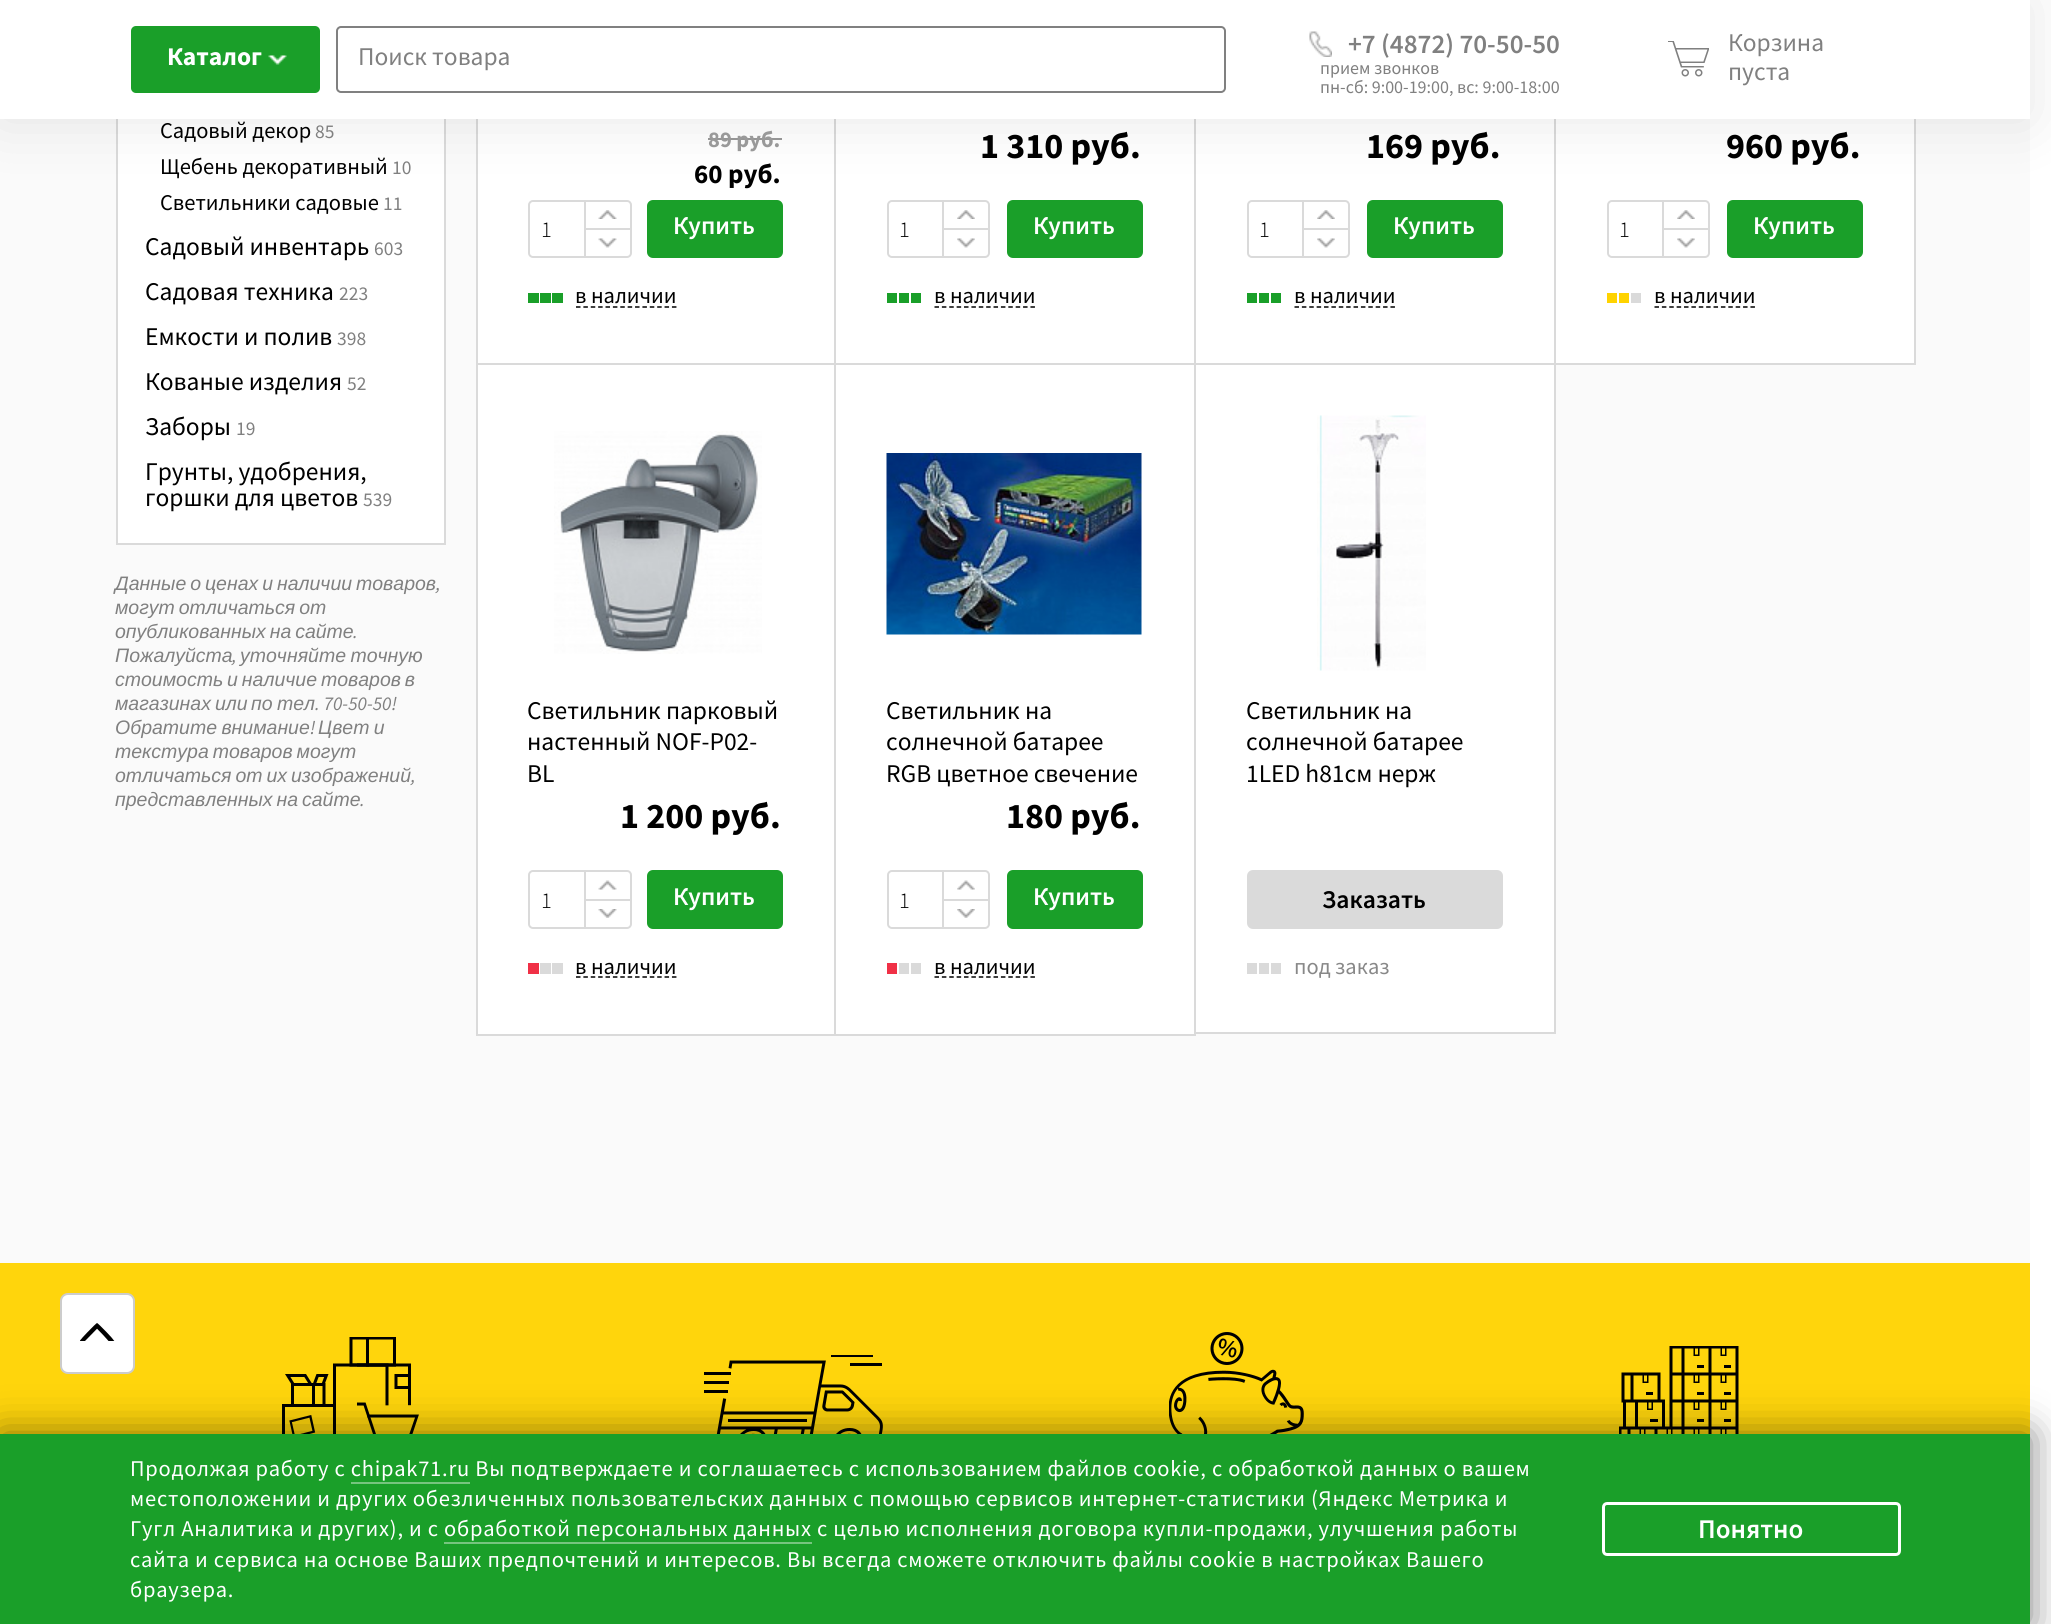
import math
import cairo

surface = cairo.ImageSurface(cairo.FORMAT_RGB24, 2051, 1624)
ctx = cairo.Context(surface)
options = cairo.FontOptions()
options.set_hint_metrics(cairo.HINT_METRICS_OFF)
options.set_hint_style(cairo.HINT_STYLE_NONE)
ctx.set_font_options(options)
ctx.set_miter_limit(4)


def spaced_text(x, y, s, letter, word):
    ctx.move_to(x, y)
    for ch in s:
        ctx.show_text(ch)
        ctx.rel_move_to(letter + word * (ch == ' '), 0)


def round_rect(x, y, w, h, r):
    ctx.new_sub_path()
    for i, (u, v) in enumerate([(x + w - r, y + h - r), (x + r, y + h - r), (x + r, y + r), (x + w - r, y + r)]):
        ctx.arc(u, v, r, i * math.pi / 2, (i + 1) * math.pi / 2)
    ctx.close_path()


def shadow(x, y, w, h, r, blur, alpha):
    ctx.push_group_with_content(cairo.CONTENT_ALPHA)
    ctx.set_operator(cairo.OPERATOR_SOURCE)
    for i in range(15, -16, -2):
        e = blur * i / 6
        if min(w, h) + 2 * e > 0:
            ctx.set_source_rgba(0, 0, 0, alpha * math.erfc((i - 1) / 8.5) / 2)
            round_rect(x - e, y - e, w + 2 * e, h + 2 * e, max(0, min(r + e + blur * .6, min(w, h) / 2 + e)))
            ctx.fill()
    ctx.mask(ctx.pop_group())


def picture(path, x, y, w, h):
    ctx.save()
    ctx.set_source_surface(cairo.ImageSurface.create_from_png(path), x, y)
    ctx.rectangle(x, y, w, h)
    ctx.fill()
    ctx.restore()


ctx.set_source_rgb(1, 1, 1)
ctx.paint()
ctx.set_source_rgb(0.98, 0.98, 0.98)
ctx.rectangle(0, 119, 2030, 1144)
ctx.fill()
ctx.set_source_rgb(1, 1, 1)
ctx.rectangle(118, 119, 326, 424)
ctx.fill()
ctx.rectangle(117, -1, 328, 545)
ctx.set_source_rgb(0.855, 0.855, 0.855)
ctx.stroke()
ctx.set_source_rgb(1, 1, 1)
ctx.rectangle(478, 119, 356, 244)
ctx.fill()
ctx.set_source_rgb(0.855, 0.855, 0.855)
ctx.rectangle(834, 119, 2, 916)
ctx.fill()
ctx.rectangle(476, 363, 360, 2)
ctx.fill()
ctx.rectangle(476, 119, 2, 246)
ctx.fill()
ctx.set_source_rgb(0.6, 0.6, 0.6)
ctx.rectangle(708, 138, 74, 2)
ctx.fill()
round_rect(529, 201, 102, 56, 4)
ctx.set_source_rgb(0.855, 0.855, 0.855)
ctx.stroke()
ctx.rectangle(584, 228, 46, 2)
ctx.fill()
ctx.rectangle(584, 201, 2, 56)
ctx.fill()
ctx.set_source_rgb(0.102, 0.624, 0.161)
round_rect(647, 200, 136, 58, 6)
ctx.fill()
ctx.set_source_rgb(1, 1, 1)
ctx.rectangle(836, 119, 358, 244)
ctx.fill()
ctx.set_source_rgb(0.855, 0.855, 0.855)
ctx.rectangle(1194, 119, 2, 916)
ctx.fill()
round_rect(888, 201, 101, 56, 4)
ctx.stroke()
ctx.rectangle(942, 228, 47, 2)
ctx.fill()
ctx.rectangle(942, 201, 2, 56)
ctx.fill()
ctx.set_source_rgb(0.102, 0.624, 0.161)
round_rect(1007, 200, 136, 58, 6)
ctx.fill()
ctx.set_source_rgb(1, 1, 1)
ctx.rectangle(1196, 119, 358, 244)
ctx.fill()
ctx.set_source_rgb(0.855, 0.855, 0.855)
ctx.rectangle(1554, 119, 2, 915)
ctx.fill()
round_rect(1248, 201, 101, 56, 4)
ctx.stroke()
ctx.rectangle(1302, 228, 47, 2)
ctx.fill()
ctx.rectangle(1302, 201, 2, 56)
ctx.fill()
ctx.set_source_rgb(0.102, 0.624, 0.161)
round_rect(1367, 200, 136, 58, 6)
ctx.fill()
ctx.set_source_rgb(1, 1, 1)
ctx.rectangle(1556, 119, 358, 244)
ctx.fill()
ctx.set_source_rgb(0.855, 0.855, 0.855)
ctx.rectangle(1914, 119, 2, 246)
ctx.fill()
round_rect(1608, 201, 101, 56, 4)
ctx.stroke()
ctx.rectangle(1662, 228, 47, 2)
ctx.fill()
ctx.rectangle(1662, 201, 2, 56)
ctx.fill()
ctx.set_source_rgb(0.102, 0.624, 0.161)
round_rect(1727, 200, 136, 58, 6)
ctx.fill()
ctx.set_source_rgb(0, 0, 0)
shadow(0, 0, 2030, 119, 0, 30, 0.1)
ctx.set_source_rgb(1, 1, 1)
ctx.rectangle(0, 0, 2030, 119)
ctx.fill()
ctx.set_source_rgb(0.102, 0.624, 0.161)
round_rect(131, 26, 189, 67, 5)
ctx.fill()
picture("img1.png", 268, 55, 19, 10)
ctx.select_font_face("Source Sans Pro", cairo.FONT_SLANT_NORMAL, cairo.FONT_WEIGHT_BOLD)
ctx.set_font_size(25.5)
ctx.set_source_rgb(1, 1, 1)
ctx.move_to(167, 65)
ctx.show_text("Каталог")
round_rect(337, 27, 888, 65, 4)
ctx.set_source_rgb(0.502, 0.502, 0.502)
ctx.stroke()
ctx.select_font_face("Source Sans Pro")
ctx.move_to(358, 65)
ctx.show_text("Поиск товара")
picture("img2.png", 1309, 31, 23, 26)
ctx.select_font_face("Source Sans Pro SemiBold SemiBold")
ctx.set_font_size(27)
ctx.move_to(1348, 53)
ctx.show_text("+7 (4872) 70-50-50")
ctx.select_font_face("Source Sans Pro")
ctx.set_font_size(18)
ctx.move_to(1320, 74)
ctx.show_text("прием звонков")
ctx.move_to(1320, 93)
ctx.show_text("пн-сб: 9:00-19:00, вс: 9:00-18:00")
picture("img3.png", 1668, 41, 41, 36)
ctx.set_font_size(25.5)
ctx.move_to(1728, 51)
ctx.show_text("Корзина")
ctx.move_to(1728, 80)
ctx.show_text("пуста")
ctx.set_font_size(22.5)
ctx.set_source_rgb(0, 0, 0)
ctx.move_to(160, 138)
ctx.show_text("Садовый декор")
ctx.set_font_size(19.5)
ctx.set_source_rgb(0.502, 0.502, 0.502)
ctx.move_to(315, 138)
ctx.show_text("85")
ctx.set_font_size(22.5)
ctx.set_source_rgb(0, 0, 0)
ctx.move_to(160, 174)
ctx.show_text("Щебень декоративный")
ctx.set_font_size(19.5)
ctx.set_source_rgb(0.502, 0.502, 0.502)
ctx.move_to(392, 174)
ctx.show_text("10")
ctx.set_font_size(22.5)
ctx.set_source_rgb(0, 0, 0)
ctx.move_to(160, 210)
ctx.show_text("Светильники садовые")
ctx.set_font_size(19.5)
ctx.set_source_rgb(0.502, 0.502, 0.502)
ctx.move_to(383, 210)
ctx.show_text("11")
ctx.set_font_size(25.5)
ctx.set_source_rgb(0, 0, 0)
ctx.move_to(145, 255)
ctx.show_text("Садовый инвентарь")
ctx.set_font_size(19.5)
ctx.set_source_rgb(0.502, 0.502, 0.502)
ctx.move_to(374, 255)
ctx.show_text("603")
ctx.set_font_size(25.5)
ctx.set_source_rgb(0, 0, 0)
ctx.move_to(145, 300)
ctx.show_text("Садовая техника")
ctx.set_font_size(19.5)
ctx.set_source_rgb(0.502, 0.502, 0.502)
ctx.move_to(339, 300)
ctx.show_text("223")
ctx.set_font_size(25.5)
ctx.set_source_rgb(0, 0, 0)
ctx.move_to(145, 345)
ctx.show_text("Емкости и полив")
ctx.set_font_size(19.5)
ctx.set_source_rgb(0.502, 0.502, 0.502)
ctx.move_to(337, 345)
ctx.show_text("398")
ctx.set_font_size(25.5)
ctx.set_source_rgb(0, 0, 0)
ctx.move_to(145, 390)
ctx.show_text("Кованые изделия")
ctx.set_font_size(19.5)
ctx.set_source_rgb(0.502, 0.502, 0.502)
ctx.move_to(347, 390)
ctx.show_text("52")
ctx.set_font_size(25.5)
ctx.set_source_rgb(0, 0, 0)
ctx.move_to(145, 435)
ctx.show_text("Заборы")
ctx.set_font_size(19.5)
ctx.set_source_rgb(0.502, 0.502, 0.502)
ctx.move_to(236, 435)
ctx.show_text("19")
ctx.set_font_size(25.5)
ctx.set_source_rgb(0, 0, 0)
ctx.move_to(145, 480)
ctx.show_text("Грунты, удобрения,")
ctx.move_to(145, 506)
ctx.show_text("горшки для цветов")
ctx.set_font_size(19.5)
ctx.set_source_rgb(0.502, 0.502, 0.502)
ctx.move_to(363, 506)
ctx.show_text("539")
ctx.select_font_face("Liberation Sans", cairo.FONT_SLANT_ITALIC)
spaced_text(115, 590, "Данные о ценах и наличии товаров", 0, -1.5)
ctx.select_font_face("Source Sans Pro", cairo.FONT_SLANT_ITALIC)
ctx.move_to(436, 590)
ctx.show_text(",")
ctx.select_font_face("Liberation Sans", cairo.FONT_SLANT_ITALIC)
spaced_text(115, 614, "могут отличаться от", 0, -1.5)
spaced_text(115, 638, "опубликованных на сайте", 0, -1.5)
ctx.select_font_face("Source Sans Pro", cairo.FONT_SLANT_ITALIC)
ctx.move_to(353, 638)
ctx.show_text(".")
ctx.select_font_face("Liberation Sans", cairo.FONT_SLANT_ITALIC)
ctx.move_to(115, 662)
ctx.show_text("Пожалуйста")
ctx.select_font_face("Source Sans Pro", cairo.FONT_SLANT_ITALIC)
ctx.move_to(232, 662)
ctx.show_text(",")
ctx.select_font_face("Liberation Sans", cairo.FONT_SLANT_ITALIC)
spaced_text(240, 662, "уточняйте точную", 0, -1)
spaced_text(115, 686, "стоимость и наличие товаров в", 0, -1.5)
ctx.move_to(115, 710)
ctx.show_text("магазинах")
ctx.move_to(215, 710)
ctx.show_text("или")
ctx.move_to(251, 710)
ctx.show_text("по")
ctx.move_to(277, 710)
ctx.show_text("тел")
ctx.select_font_face("Source Sans Pro", cairo.FONT_SLANT_ITALIC)
ctx.move_to(315, 710)
ctx.show_text(". 70-50-50!")
ctx.select_font_face("Liberation Sans", cairo.FONT_SLANT_ITALIC)
spaced_text(115, 734, "Обратите внимание", 0, -1)
ctx.select_font_face("Source Sans Pro", cairo.FONT_SLANT_ITALIC)
ctx.move_to(310, 734)
ctx.show_text("!")
ctx.select_font_face("Liberation Sans", cairo.FONT_SLANT_ITALIC)
spaced_text(318, 734, "Цвет и", 0, -1)
spaced_text(115, 758, "текстура товаров могут", 0, -1.5)
spaced_text(115, 782, "отличаться от их изображений", 0, -1.5)
ctx.select_font_face("Source Sans Pro", cairo.FONT_SLANT_ITALIC)
ctx.move_to(411, 782)
ctx.show_text(",")
ctx.select_font_face("Liberation Sans", cairo.FONT_SLANT_ITALIC)
spaced_text(115, 806, "представленных на сайте", 0, -1.5)
ctx.select_font_face("Source Sans Pro", cairo.FONT_SLANT_ITALIC)
ctx.move_to(360, 806)
ctx.show_text(".")
ctx.select_font_face("Source Sans Pro", cairo.FONT_SLANT_NORMAL, cairo.FONT_WEIGHT_BOLD)
ctx.set_font_size(22.5)
ctx.set_source_rgb(0.6, 0.6, 0.6)
ctx.move_to(708, 147)
ctx.show_text("89 руб.")
ctx.set_font_size(27)
ctx.set_source_rgb(0, 0, 0)
ctx.move_to(694, 183)
ctx.show_text("60 руб.")
ctx.select_font_face("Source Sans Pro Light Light")
ctx.set_font_size(22.5)
ctx.move_to(541, 237)
ctx.show_text("1")
picture("img4.png", 598, 210, 19, 9)
picture("img5.png", 598, 238, 19, 10)
ctx.select_font_face("Source Sans Pro SemiBold SemiBold")
ctx.set_font_size(25.5)
ctx.set_source_rgb(1, 1, 1)
ctx.move_to(673, 234)
ctx.show_text("Купить")
ctx.set_source_rgb(0.102, 0.624, 0.161)
ctx.rectangle(528, 293, 11, 10)
ctx.fill()
ctx.rectangle(540, 293, 11, 10)
ctx.fill()
ctx.rectangle(552, 293, 11, 10)
ctx.fill()
ctx.new_path()
ctx.move_to(576, 307)
ctx.line_to(676.5, 307)
ctx.set_source_rgb(0, 0, 0)
ctx.set_line_width(1.5)
ctx.set_dash([4.5, 2.88])
ctx.stroke()
ctx.select_font_face("Source Sans Pro")
ctx.set_font_size(22.5)
ctx.move_to(575, 303)
ctx.show_text("в наличии")
ctx.set_source_rgb(0.855, 0.855, 0.855)
ctx.rectangle(836, 363, 360, 2)
ctx.fill()
ctx.select_font_face("Source Sans Pro", cairo.FONT_SLANT_NORMAL, cairo.FONT_WEIGHT_BOLD)
ctx.set_font_size(36)
ctx.set_source_rgb(0, 0, 0)
ctx.move_to(980, 158)
ctx.show_text("1 310 руб.")
ctx.select_font_face("Source Sans Pro Light Light")
ctx.set_font_size(22.5)
ctx.move_to(899, 237)
ctx.show_text("1")
picture("img6.png", 957, 210, 18, 9)
picture("img7.png", 957, 238, 18, 10)
ctx.select_font_face("Source Sans Pro SemiBold SemiBold")
ctx.set_font_size(25.5)
ctx.set_source_rgb(1, 1, 1)
ctx.move_to(1033, 234)
ctx.show_text("Купить")
ctx.set_source_rgb(0.102, 0.624, 0.161)
ctx.rectangle(887, 293, 10, 10)
ctx.fill()
ctx.rectangle(899, 293, 10, 10)
ctx.fill()
ctx.rectangle(911, 293, 10, 10)
ctx.fill()
ctx.new_path()
ctx.move_to(934.5, 307)
ctx.line_to(1035, 307)
ctx.set_source_rgb(0, 0, 0)
ctx.stroke()
ctx.select_font_face("Source Sans Pro")
ctx.set_font_size(22.5)
ctx.move_to(934, 303)
ctx.show_text("в наличии")
ctx.set_source_rgb(0.855, 0.855, 0.855)
ctx.rectangle(1196, 363, 360, 2)
ctx.fill()
ctx.select_font_face("Source Sans Pro", cairo.FONT_SLANT_NORMAL, cairo.FONT_WEIGHT_BOLD)
ctx.set_font_size(36)
ctx.set_source_rgb(0, 0, 0)
ctx.move_to(1366, 158)
ctx.show_text("169 руб.")
ctx.select_font_face("Source Sans Pro Light Light")
ctx.set_font_size(22.5)
ctx.move_to(1259, 237)
ctx.show_text("1")
picture("img6.png", 1317, 210, 18, 9)
picture("img7.png", 1317, 238, 18, 10)
ctx.select_font_face("Source Sans Pro SemiBold SemiBold")
ctx.set_font_size(25.5)
ctx.set_source_rgb(1, 1, 1)
ctx.move_to(1393, 234)
ctx.show_text("Купить")
ctx.set_source_rgb(0.102, 0.624, 0.161)
ctx.rectangle(1247, 293, 10, 10)
ctx.fill()
ctx.rectangle(1259, 293, 10, 10)
ctx.fill()
ctx.rectangle(1271, 293, 10, 10)
ctx.fill()
ctx.new_path()
ctx.move_to(1294.5, 307)
ctx.line_to(1395, 307)
ctx.set_source_rgb(0, 0, 0)
ctx.stroke()
ctx.select_font_face("Source Sans Pro")
ctx.set_font_size(22.5)
ctx.move_to(1294, 303)
ctx.show_text("в наличии")
ctx.set_source_rgb(0.855, 0.855, 0.855)
ctx.rectangle(1556, 363, 360, 2)
ctx.fill()
ctx.select_font_face("Source Sans Pro", cairo.FONT_SLANT_NORMAL, cairo.FONT_WEIGHT_BOLD)
ctx.set_font_size(36)
ctx.set_source_rgb(0, 0, 0)
ctx.move_to(1726, 158)
ctx.show_text("960 руб.")
ctx.select_font_face("Source Sans Pro Light Light")
ctx.set_font_size(22.5)
ctx.move_to(1619, 237)
ctx.show_text("1")
picture("img6.png", 1677, 210, 18, 9)
picture("img7.png", 1677, 238, 18, 10)
ctx.select_font_face("Source Sans Pro SemiBold SemiBold")
ctx.set_font_size(25.5)
ctx.set_source_rgb(1, 1, 1)
ctx.move_to(1753, 234)
ctx.show_text("Купить")
ctx.set_source_rgb(1, 0.827, 0)
ctx.rectangle(1607, 293, 10, 10)
ctx.fill()
ctx.rectangle(1619, 293, 10, 10)
ctx.fill()
ctx.set_source_rgb(0.855, 0.855, 0.855)
ctx.rectangle(1631, 293, 10, 10)
ctx.fill()
ctx.new_path()
ctx.move_to(1654.5, 307)
ctx.line_to(1755, 307)
ctx.set_source_rgb(0, 0, 0)
ctx.stroke()
ctx.select_font_face("Source Sans Pro")
ctx.set_font_size(22.5)
ctx.move_to(1654, 303)
ctx.show_text("в наличии")
ctx.set_source_rgb(1, 1, 1)
ctx.rectangle(478, 365, 356, 669)
ctx.fill()
ctx.set_source_rgb(0.855, 0.855, 0.855)
ctx.rectangle(476, 1034, 720, 2)
ctx.fill()
ctx.rectangle(476, 365, 2, 670)
ctx.fill()
picture("img8.png", 554, 431, 208, 223)
ctx.set_font_size(25.5)
ctx.set_source_rgb(0, 0, 0)
ctx.move_to(527, 719)
ctx.show_text("Светильник парковый")
ctx.move_to(527, 750)
ctx.show_text("настенный NOF-P02-")
ctx.move_to(527, 782)
ctx.show_text("BL")
ctx.select_font_face("Source Sans Pro", cairo.FONT_SLANT_NORMAL, cairo.FONT_WEIGHT_BOLD)
ctx.set_font_size(36)
ctx.move_to(620, 828)
ctx.show_text("1 200 руб.")
round_rect(529, 871, 102, 57, 4)
ctx.set_source_rgb(0.855, 0.855, 0.855)
ctx.set_line_width(2)
ctx.set_dash([])
ctx.stroke()
ctx.select_font_face("Source Sans Pro Light Light")
ctx.set_font_size(22.5)
ctx.set_source_rgb(0, 0, 0)
ctx.move_to(541, 908)
ctx.show_text("1")
ctx.set_source_rgb(0.855, 0.855, 0.855)
ctx.rectangle(584, 899, 46, 2)
ctx.fill()
ctx.rectangle(584, 872, 2, 55)
ctx.fill()
picture("img9.png", 598, 880, 19, 10)
picture("img10.png", 598, 909, 19, 9)
ctx.set_source_rgb(0.102, 0.624, 0.161)
round_rect(647, 870, 136, 59, 6)
ctx.fill()
ctx.select_font_face("Source Sans Pro SemiBold SemiBold")
ctx.set_font_size(25.5)
ctx.set_source_rgb(1, 1, 1)
ctx.move_to(673, 905)
ctx.show_text("Купить")
ctx.set_source_rgb(0.941, 0.188, 0.275)
ctx.rectangle(528, 963, 11, 11)
ctx.fill()
ctx.set_source_rgb(0.855, 0.855, 0.855)
ctx.rectangle(540, 963, 11, 11)
ctx.fill()
ctx.rectangle(552, 963, 11, 11)
ctx.fill()
ctx.new_path()
ctx.move_to(576, 977)
ctx.line_to(676.5, 977)
ctx.set_source_rgb(0, 0, 0)
ctx.set_line_width(1.5)
ctx.set_dash([4.5, 2.88])
ctx.stroke()
ctx.select_font_face("Source Sans Pro")
ctx.set_font_size(22.5)
ctx.move_to(575, 974)
ctx.show_text("в наличии")
ctx.set_source_rgb(1, 1, 1)
ctx.rectangle(836, 365, 358, 669)
ctx.fill()
picture("img11.png", 886, 453, 256, 182)
ctx.set_font_size(25.5)
ctx.set_source_rgb(0, 0, 0)
ctx.move_to(886, 719)
ctx.show_text("Светильник на")
ctx.move_to(886, 750)
ctx.show_text("солнечной батарее")
ctx.move_to(886, 782)
ctx.show_text("RGB цветное свечение")
ctx.select_font_face("Source Sans Pro", cairo.FONT_SLANT_NORMAL, cairo.FONT_WEIGHT_BOLD)
ctx.set_font_size(36)
ctx.move_to(1006, 828)
ctx.show_text("180 руб.")
round_rect(888, 871, 101, 57, 4)
ctx.set_source_rgb(0.855, 0.855, 0.855)
ctx.set_line_width(2)
ctx.set_dash([])
ctx.stroke()
ctx.select_font_face("Source Sans Pro Light Light")
ctx.set_font_size(22.5)
ctx.set_source_rgb(0, 0, 0)
ctx.move_to(899, 908)
ctx.show_text("1")
ctx.set_source_rgb(0.855, 0.855, 0.855)
ctx.rectangle(942, 899, 47, 2)
ctx.fill()
ctx.rectangle(942, 872, 2, 55)
ctx.fill()
picture("img12.png", 957, 880, 18, 10)
picture("img13.png", 957, 909, 18, 9)
ctx.set_source_rgb(0.102, 0.624, 0.161)
round_rect(1007, 870, 136, 59, 6)
ctx.fill()
ctx.select_font_face("Source Sans Pro SemiBold SemiBold")
ctx.set_font_size(25.5)
ctx.set_source_rgb(1, 1, 1)
ctx.move_to(1033, 905)
ctx.show_text("Купить")
ctx.set_source_rgb(0.941, 0.188, 0.275)
ctx.rectangle(887, 963, 10, 11)
ctx.fill()
ctx.set_source_rgb(0.855, 0.855, 0.855)
ctx.rectangle(899, 963, 10, 11)
ctx.fill()
ctx.rectangle(911, 963, 10, 11)
ctx.fill()
ctx.new_path()
ctx.move_to(934.5, 977)
ctx.line_to(1035, 977)
ctx.set_source_rgb(0, 0, 0)
ctx.set_line_width(1.5)
ctx.set_dash([4.5, 2.88])
ctx.stroke()
ctx.select_font_face("Source Sans Pro")
ctx.set_font_size(22.5)
ctx.move_to(934, 974)
ctx.show_text("в наличии")
ctx.set_source_rgb(1, 1, 1)
ctx.rectangle(1196, 365, 358, 667)
ctx.fill()
ctx.set_source_rgb(0.855, 0.855, 0.855)
ctx.rectangle(1196, 1032, 360, 2)
ctx.fill()
picture("img14.png", 1317, 415, 109, 256)
ctx.set_font_size(25.5)
ctx.set_source_rgb(0, 0, 0)
ctx.move_to(1246, 719)
ctx.show_text("Светильник на")
ctx.move_to(1246, 750)
ctx.show_text("солнечной батарее")
ctx.move_to(1246, 782)
ctx.show_text("1LED h81см нерж")
ctx.set_source_rgb(0.855, 0.855, 0.855)
round_rect(1247, 870, 256, 59, 6)
ctx.fill()
ctx.select_font_face("Source Sans Pro SemiBold SemiBold")
ctx.set_source_rgb(0, 0, 0)
ctx.move_to(1322, 908)
ctx.show_text("Заказать")
ctx.set_source_rgb(0.855, 0.855, 0.855)
ctx.rectangle(1247, 963, 10, 11)
ctx.fill()
ctx.rectangle(1259, 963, 10, 11)
ctx.fill()
ctx.rectangle(1271, 963, 10, 11)
ctx.fill()
ctx.select_font_face("Source Sans Pro")
ctx.set_font_size(22.5)
ctx.set_source_rgb(0.533, 0.533, 0.533)
ctx.move_to(1294, 974)
ctx.show_text("под заказ")
ctx.set_source_rgb(1, 0.835, 0.047)
ctx.rectangle(0, 1263, 2030, 171)
ctx.fill()
picture("img15.png", 282, 1337, 137, 97)
picture("img16.png", 704, 1355, 179, 79)
picture("img17.png", 1169, 1332, 135, 102)
picture("img18.png", 1619, 1346, 120, 88)
ctx.set_source_rgb(1, 1, 1)
round_rect(61, 1294, 73, 79, 7)
ctx.fill_preserve()
ctx.set_source_rgb(0.8, 0.8, 0.8)
ctx.set_line_width(2)
ctx.set_dash([])
ctx.stroke()
picture("img19.png", 80, 1323, 35, 18)
ctx.set_source_rgb(0, 0, 0)
shadow(0, 1434, 2030, 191, 0, 20, 0.5)
ctx.set_source_rgb(0.102, 0.624, 0.161)
ctx.rectangle(0, 1434, 2030, 190)
ctx.fill()
ctx.set_source_rgb(1, 1, 1)
spaced_text(130, 1476, "Продолжая работу с chipak71.ru Вы подтверждаете и соглашаетесь с использованием файлов cookie, с обработкой данных о вашем", 0.75, 0)
ctx.set_source_rgb(0.463, 0.773, 0.498)
ctx.rectangle(351, 1482, 119, 2)
ctx.fill()
ctx.set_source_rgb(1, 1, 1)
spaced_text(130, 1506, "местоположении и других обезличенных пользовательских данных с помощью сервисов интернет-статистики (Яндекс Метрика и", 0.75, 0)
spaced_text(130, 1536, "Гугл Аналитика и других), и с обработкой персональных данных c целью исполнения договора купли-продажи, улучшения работы", 0.75, 0)
ctx.set_source_rgb(0.463, 0.773, 0.498)
ctx.rectangle(444, 1542, 368, 2)
ctx.fill()
ctx.set_source_rgb(1, 1, 1)
spaced_text(130, 1567, "сайта и сервиса на основе Ваших предпочтений и интересов. Вы всегда сможете отключить файлы cookie в настройках Вашего", 0.75, 0)
spaced_text(130, 1597, "браузера.", 0.75, 0)
round_rect(1603.5, 1503.5, 296, 51, 3.5)
ctx.set_line_width(3)
ctx.stroke()
ctx.select_font_face("Source Sans Pro SemiBold SemiBold")
ctx.set_font_size(27)
ctx.move_to(1698, 1538)
ctx.show_text("Понятно")
surface.write_to_png("page.png")
